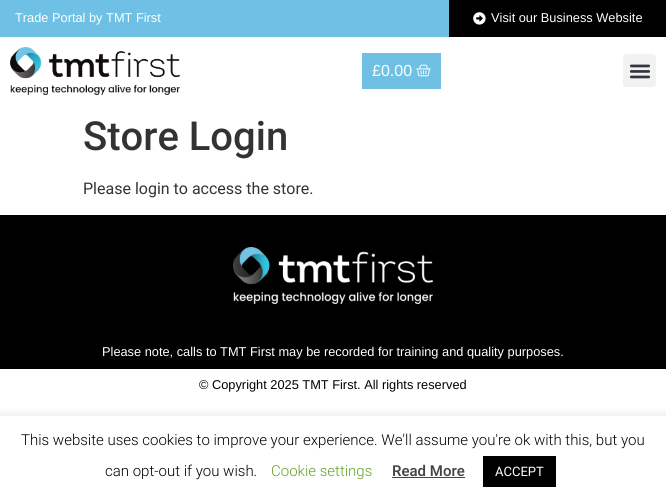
import math
import cairo

surface = cairo.ImageSurface(cairo.FORMAT_RGB24, 666, 504)
ctx = cairo.Context(surface)
options = cairo.FontOptions()
options.set_hint_metrics(cairo.HINT_METRICS_OFF)
options.set_hint_style(cairo.HINT_STYLE_NONE)
ctx.set_font_options(options)
ctx.set_miter_limit(4)


def round_rect(x, y, w, h, r):
    ctx.new_sub_path()
    for i, (u, v) in enumerate([(x + w - r, y + h - r), (x + r, y + h - r), (x + r, y + r), (x + w - r, y + r)]):
        ctx.arc(u, v, r, i * math.pi / 2, (i + 1) * math.pi / 2)
    ctx.close_path()


def shadow(x, y, w, h, r, blur, alpha):
    ctx.push_group_with_content(cairo.CONTENT_ALPHA)
    ctx.set_operator(cairo.OPERATOR_SOURCE)
    for i in range(15, -16, -2):
        e = blur * i / 6
        if min(w, h) + 2 * e > 0:
            ctx.set_source_rgba(0, 0, 0, alpha * math.erfc((i - 1) / 8.5) / 2)
            round_rect(x - e, y - e, w + 2 * e, h + 2 * e, max(0, min(r + e + blur * .6, min(w, h) / 2 + e)))
            ctx.fill()
    ctx.mask(ctx.pop_group())


def picture(path, x, y, w, h):
    ctx.save()
    ctx.set_source_surface(cairo.ImageSurface.create_from_png(path), x, y)
    ctx.rectangle(x, y, w, h)
    ctx.fill()
    ctx.restore()


ctx.set_source_rgb(1, 1, 1)
ctx.paint()
ctx.set_source_rgb(0.431, 0.757, 0.894)
ctx.rectangle(0, 0, 449, 37)
ctx.fill()
ctx.select_font_face("Liberation Sans")
ctx.set_font_size(12.8)
ctx.set_source_rgb(1, 1, 1)
ctx.move_to(15, 22)
ctx.show_text("Trade Portal by TMT First")
ctx.set_source_rgb(0, 0, 0)
ctx.rectangle(449, 0, 217, 37)
ctx.fill()
picture("img1.png", 473, 12, 13, 13)
ctx.set_source_rgb(1, 1, 1)
ctx.move_to(491, 22)
ctx.show_text("Visit our Business Website")
picture("img2.png", 10, 47, 170, 48)
ctx.set_source_rgb(0.431, 0.757, 0.894)
ctx.rectangle(362, 53, 79, 36)
ctx.fill()
ctx.set_font_size(16)
ctx.set_source_rgb(1, 1, 1)
ctx.move_to(372, 76)
ctx.show_text("£0.00")
picture("img3.png", 416, 64, 15, 13)
ctx.set_source_rgb(0.949, 0.949, 0.949)
round_rect(623, 54, 33, 33, 3)
ctx.fill()
picture("img4.png", 629, 64, 22, 15)
ctx.select_font_face("Roboto Medium")
ctx.set_font_size(40)
ctx.set_source_rgb(0.2, 0.2, 0.2)
ctx.move_to(83, 150)
ctx.show_text("Store Login")
ctx.select_font_face("Roboto")
ctx.set_font_size(16)
ctx.move_to(83, 194)
ctx.show_text("Please login to access the store.")
ctx.set_source_rgb(0, 0, 0)
ctx.rectangle(0, 215, 666, 154)
ctx.fill()
picture("img5.png", 233, 247, 200, 57)
ctx.select_font_face("Liberation Sans")
ctx.set_font_size(12.8)
ctx.set_source_rgb(1, 1, 1)
ctx.move_to(102, 356)
ctx.show_text("Please note, calls to TMT First may be recorded for training and quality purposes.")
ctx.set_source_rgb(0, 0, 0)
ctx.move_to(199, 389)
ctx.show_text("© Copyright 2025 TMT First. All rights reserved")
ctx.save()
ctx.rectangle(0, 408, 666, 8)
ctx.clip()
ctx.set_source_rgb(0.675, 0.671, 0.671)
shadow(0, 415, 666, 88, 0, 5, 0.3)
ctx.restore()
ctx.select_font_face("Roboto Light")
ctx.set_font_size(15)
ctx.move_to(21, 445)
ctx.show_text("This website uses cookies to improve your experience. We'll assume you're ok with this, but you")
ctx.move_to(105, 476)
ctx.show_text("can opt-out if you wish.")
ctx.set_source_rgb(0.384, 0.639, 0.161)
ctx.move_to(271, 476)
ctx.show_text("Cookie settings")
ctx.select_font_face("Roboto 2 Medium")
ctx.set_source_rgb(0.267, 0.267, 0.267)
ctx.move_to(392, 476)
ctx.show_text("Read More")
ctx.rectangle(392, 477, 73, 1)
ctx.fill()
ctx.set_source_rgb(0, 0, 0)
ctx.rectangle(483, 456, 73, 31)
ctx.fill()
ctx.select_font_face("Roboto")
ctx.set_font_size(13)
ctx.set_source_rgb(1, 1, 1)
ctx.move_to(495, 476)
ctx.show_text("ACCEPT")
surface.write_to_png("page.png")
